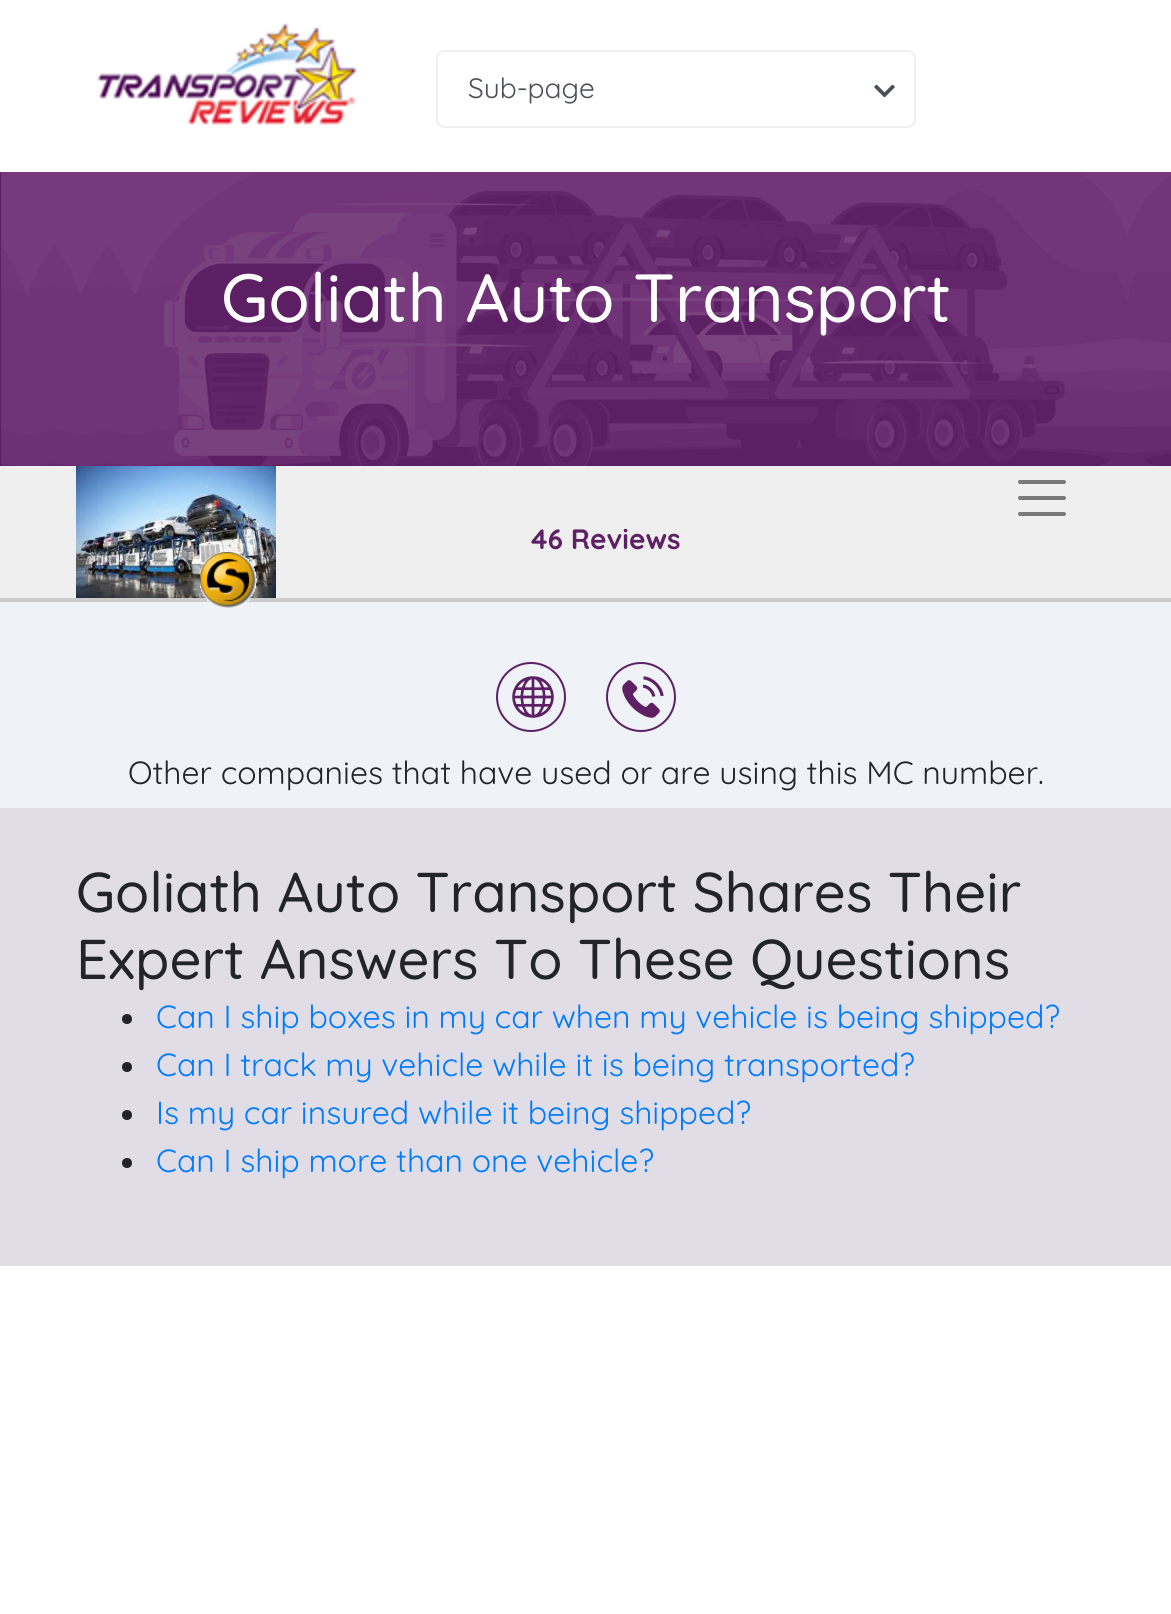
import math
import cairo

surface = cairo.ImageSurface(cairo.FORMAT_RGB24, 1171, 1614)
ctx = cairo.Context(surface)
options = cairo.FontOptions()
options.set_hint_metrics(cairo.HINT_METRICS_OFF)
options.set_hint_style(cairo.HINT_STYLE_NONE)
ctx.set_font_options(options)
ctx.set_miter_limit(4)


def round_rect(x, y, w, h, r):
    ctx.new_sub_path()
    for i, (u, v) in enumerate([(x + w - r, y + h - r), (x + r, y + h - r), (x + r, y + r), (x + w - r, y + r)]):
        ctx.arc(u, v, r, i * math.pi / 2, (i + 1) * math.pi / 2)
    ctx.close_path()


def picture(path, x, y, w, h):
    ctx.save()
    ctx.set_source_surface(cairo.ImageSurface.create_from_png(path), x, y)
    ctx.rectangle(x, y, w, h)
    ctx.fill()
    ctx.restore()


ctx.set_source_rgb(1, 1, 1)
ctx.paint()
picture("img1.png", 97, 23, 260, 102)
round_rect(437, 51, 478, 76, 7)
ctx.set_source_rgb(0.937, 0.937, 0.937)
ctx.stroke()
ctx.select_font_face("Quicksand")
ctx.set_font_size(28)
ctx.set_source_rgb(0.286, 0.314, 0.341)
ctx.move_to(468, 98)
ctx.show_text("Sub-page")
picture("img2.png", 874, 84, 21, 14)
picture("img3.png", 0, 172, 1171, 294)
ctx.select_font_face("Quicksand Medium")
ctx.set_font_size(68)
ctx.set_source_rgb(1, 1, 1)
ctx.move_to(221, 322)
ctx.show_text("Goliath Auto Transport")
ctx.set_source_rgb(0.937, 0.937, 0.937)
ctx.rectangle(0, 466, 1171, 132)
ctx.fill()
ctx.set_source_rgb(0.8, 0.8, 0.8)
ctx.rectangle(0, 598, 1171, 4)
ctx.fill()
picture("img4.png", 76, 466, 200, 132)
ctx.set_source_rgb(0.937, 0.949, 0.965)
ctx.rectangle(0, 602, 1171, 206)
ctx.fill()
picture("img5.png", 200, 552, 56, 56)
ctx.new_path()
ctx.move_to(1020, 482)
ctx.line_to(1064, 482)
ctx.move_to(1020, 498)
ctx.line_to(1064, 498)
ctx.move_to(1020, 514)
ctx.line_to(1064, 514)
ctx.set_source_rgb(0.471, 0.471, 0.471)
ctx.set_line_width(4)
ctx.set_line_cap(cairo.LINE_CAP_ROUND)
ctx.stroke()
ctx.select_font_face("Quicksand", cairo.FONT_SLANT_NORMAL, cairo.FONT_WEIGHT_BOLD)
ctx.set_font_size(28)
ctx.set_source_rgb(0.369, 0.125, 0.396)
ctx.move_to(531, 549)
ctx.show_text("46 Reviews")
ctx.new_path()
ctx.arc(531, 697, 34, 0, 2 * math.pi)
ctx.set_source_rgb(0.365, 0.125, 0.392)
ctx.set_line_width(2)
ctx.set_line_cap(cairo.LINE_CAP_BUTT)
ctx.stroke()
picture("img6.png", 512, 676, 42, 42)
ctx.arc(641, 697, 34, 0, 2 * math.pi)
ctx.stroke()
picture("img7.png", 622, 676, 42, 42)
ctx.select_font_face("Quicksand")
ctx.set_font_size(32)
ctx.set_source_rgb(0.129, 0.145, 0.161)
ctx.move_to(128, 784)
ctx.show_text("Other companies that have used or are using this MC number.")
ctx.set_source_rgb(0.878, 0.867, 0.906)
ctx.rectangle(0, 808, 1171, 458)
ctx.fill()
ctx.select_font_face("Quicksand Medium")
ctx.set_font_size(56)
ctx.set_source_rgb(0.129, 0.145, 0.161)
ctx.move_to(76, 912)
ctx.show_text("Goliath Auto Transport Shares Their")
ctx.move_to(76, 979)
ctx.show_text("Expert Answers To These Questions")
ctx.new_path()
ctx.arc(127, 1019, 5, 0, 2 * math.pi)
ctx.fill()
ctx.select_font_face("Quicksand")
ctx.set_font_size(32)
ctx.set_source_rgb(0, 0.482, 1)
ctx.move_to(156, 1028)
ctx.show_text("Can I ship boxes in my car when my vehicle is being shipped?")
ctx.set_source_rgb(0.129, 0.145, 0.161)
ctx.new_path()
ctx.arc(127, 1067, 5, 0, 2 * math.pi)
ctx.fill()
ctx.set_source_rgb(0, 0.482, 1)
ctx.move_to(156, 1076)
ctx.show_text("Can I track my vehicle while it is being transported?")
ctx.set_source_rgb(0.129, 0.145, 0.161)
ctx.new_path()
ctx.arc(127, 1115, 5, 0, 2 * math.pi)
ctx.fill()
ctx.set_source_rgb(0, 0.482, 1)
ctx.move_to(156, 1124)
ctx.show_text("Is my car insured while it being shipped?")
ctx.set_source_rgb(0.129, 0.145, 0.161)
ctx.new_path()
ctx.arc(127, 1163, 5, 0, 2 * math.pi)
ctx.fill()
ctx.set_source_rgb(0, 0.482, 1)
ctx.move_to(156, 1172)
ctx.show_text("Can I ship more than one vehicle?")
surface.write_to_png("page.png")
